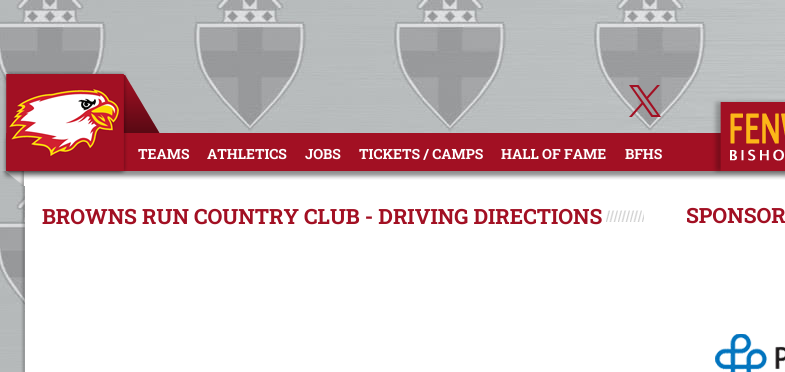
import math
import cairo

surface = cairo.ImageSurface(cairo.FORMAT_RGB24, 785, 372)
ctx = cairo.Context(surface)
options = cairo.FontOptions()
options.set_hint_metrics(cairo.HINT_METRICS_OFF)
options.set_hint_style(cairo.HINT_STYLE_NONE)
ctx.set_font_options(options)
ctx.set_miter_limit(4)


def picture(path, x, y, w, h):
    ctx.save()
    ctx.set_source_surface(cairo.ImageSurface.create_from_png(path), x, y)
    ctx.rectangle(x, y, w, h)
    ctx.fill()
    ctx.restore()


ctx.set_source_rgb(1, 1, 1)
ctx.paint()
picture("img1.png", 0, 0, 785, 372)
picture("img2.png", 2, 71, 783, 115)
picture("img3.png", 9, 88, 110, 69)
picture("img4.png", 629, 85, 32, 32)
picture("img5.png", 730, 113, 55, 48)
ctx.select_font_face("Roboto Slab", cairo.FONT_SLANT_NORMAL, cairo.FONT_WEIGHT_BOLD)
ctx.set_font_size(14)
ctx.set_source_rgb(1, 1, 1)
ctx.move_to(138, 159)
ctx.show_text("TEAMS")
ctx.move_to(207, 159)
ctx.show_text("ATHLETICS")
ctx.move_to(305, 159)
ctx.show_text("JOBS")
ctx.move_to(359, 159)
ctx.show_text("TICKETS / CAMPS")
ctx.move_to(501, 159)
ctx.show_text("HALL OF FAME")
ctx.move_to(625, 159)
ctx.show_text("BFHS")
picture("img6.png", 21, 186, 764, 186)
ctx.set_font_size(21)
ctx.set_source_rgb(0.635, 0.063, 0.137)
ctx.move_to(42, 224)
ctx.show_text("BROWNS RUN COUNTRY CLUB - DRIVING DIRECTIONS")
picture("img7.png", 606, 210, 38, 12)
ctx.move_to(686, 223)
ctx.show_text("SPONSOR")
picture("img8.png", 715, 334, 70, 38)
surface.write_to_png("page.png")
